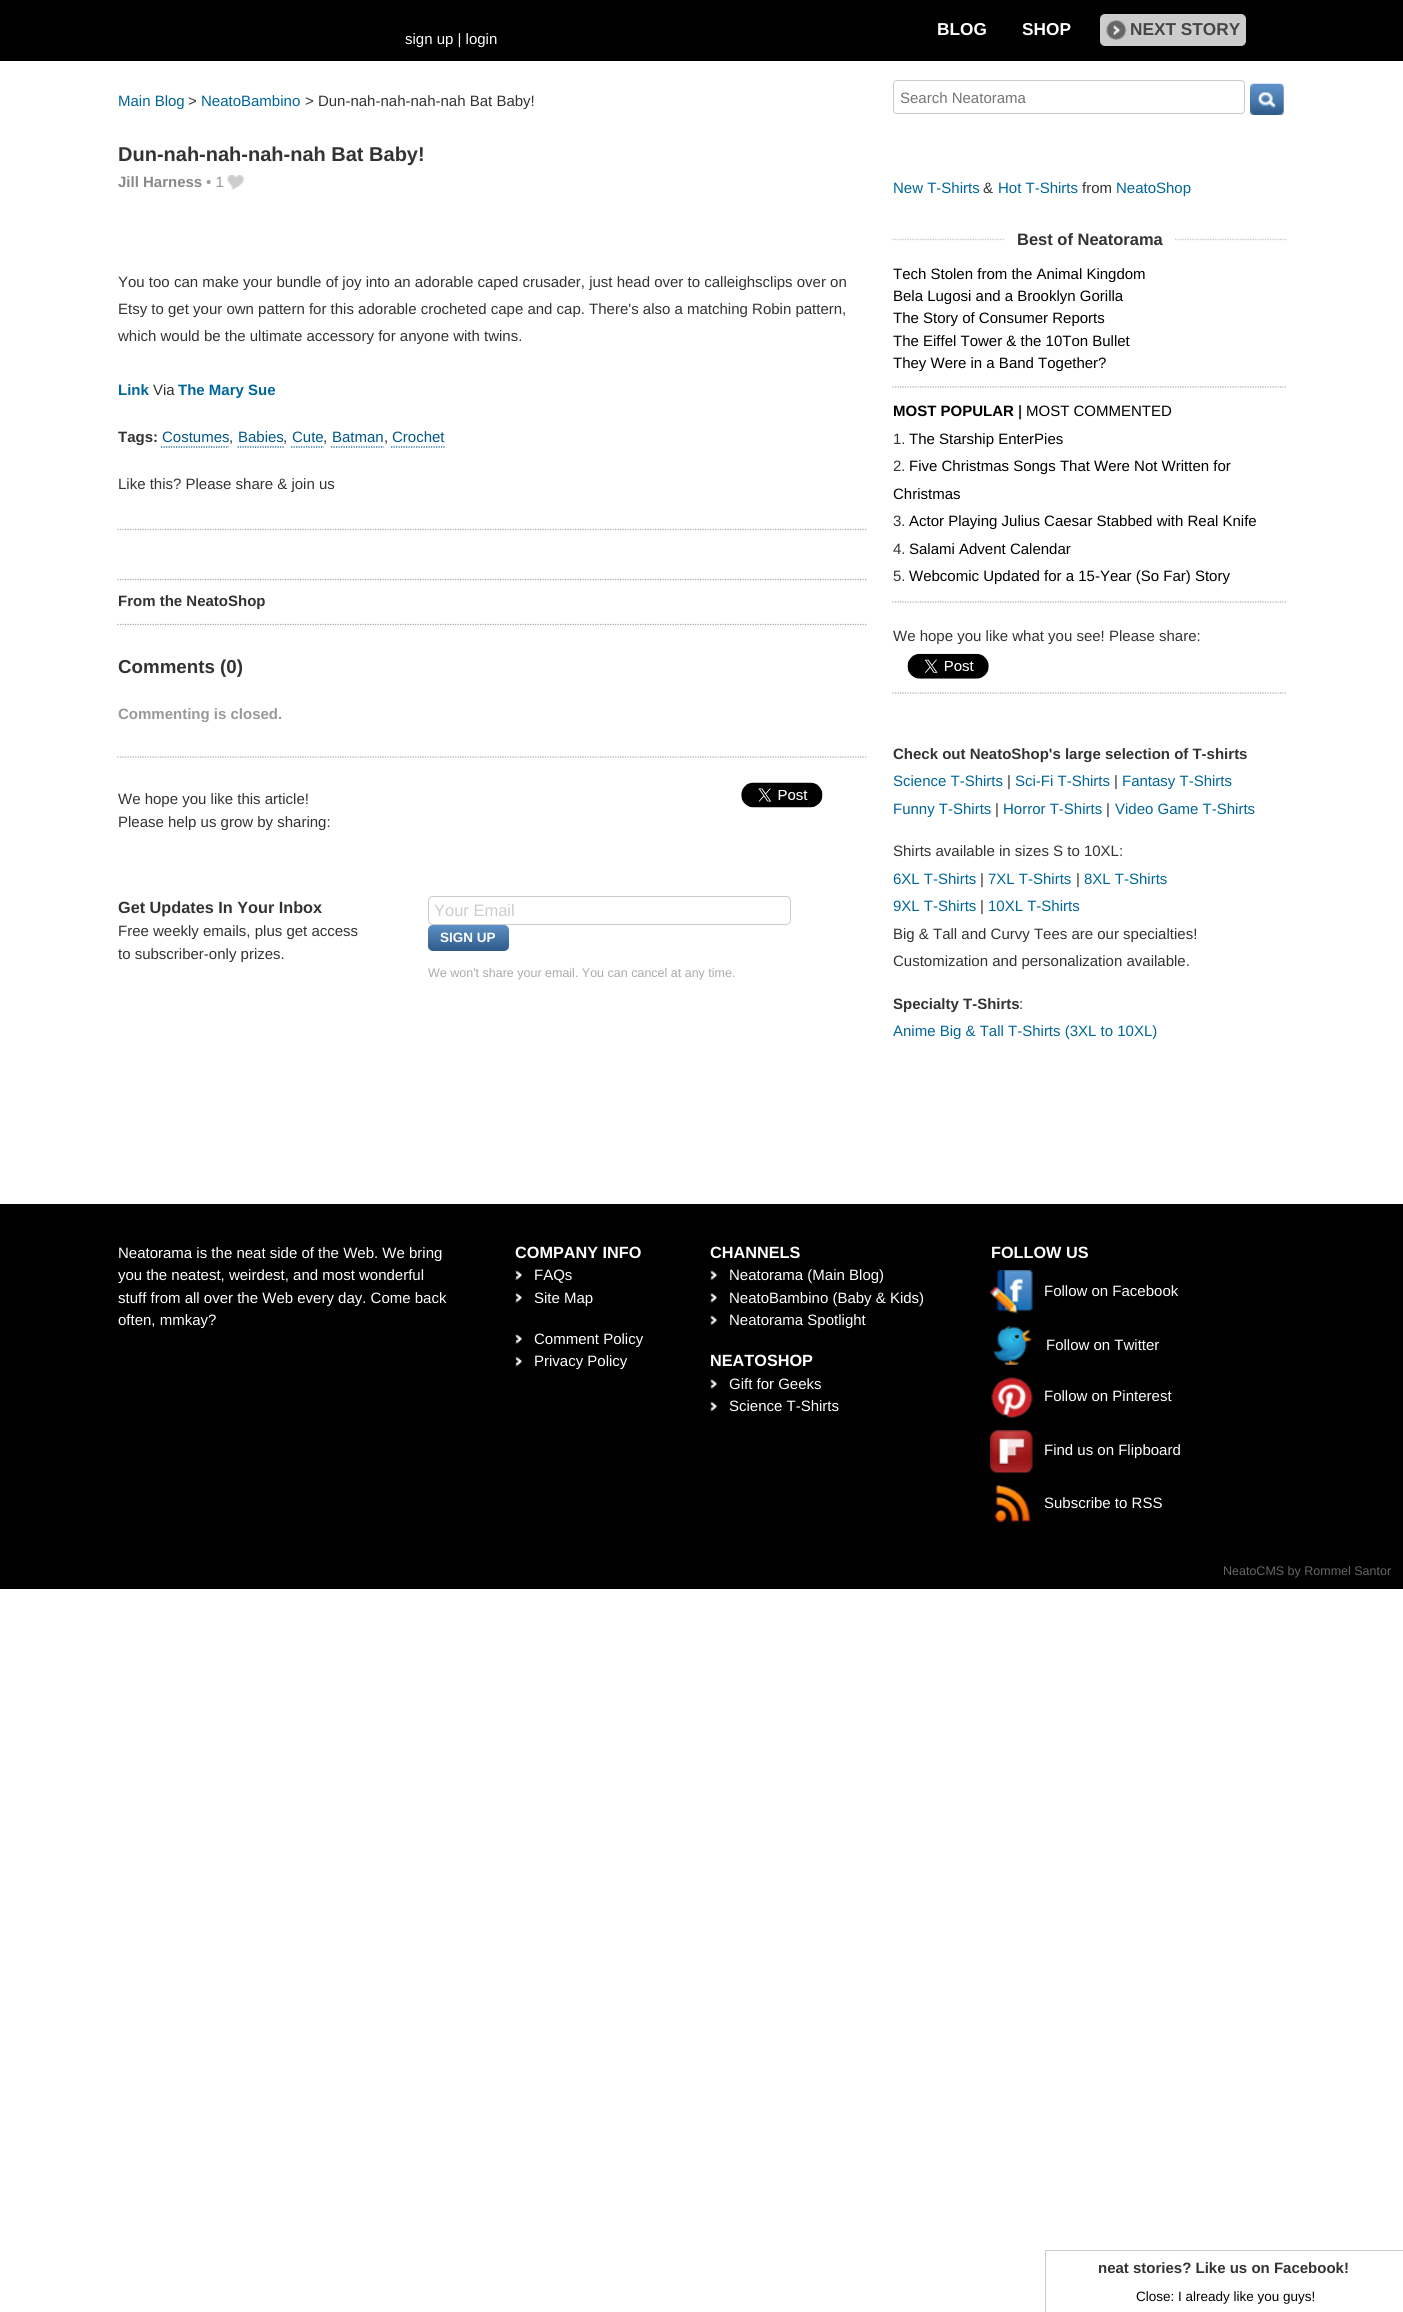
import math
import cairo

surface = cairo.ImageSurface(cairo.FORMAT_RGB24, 1403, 2312)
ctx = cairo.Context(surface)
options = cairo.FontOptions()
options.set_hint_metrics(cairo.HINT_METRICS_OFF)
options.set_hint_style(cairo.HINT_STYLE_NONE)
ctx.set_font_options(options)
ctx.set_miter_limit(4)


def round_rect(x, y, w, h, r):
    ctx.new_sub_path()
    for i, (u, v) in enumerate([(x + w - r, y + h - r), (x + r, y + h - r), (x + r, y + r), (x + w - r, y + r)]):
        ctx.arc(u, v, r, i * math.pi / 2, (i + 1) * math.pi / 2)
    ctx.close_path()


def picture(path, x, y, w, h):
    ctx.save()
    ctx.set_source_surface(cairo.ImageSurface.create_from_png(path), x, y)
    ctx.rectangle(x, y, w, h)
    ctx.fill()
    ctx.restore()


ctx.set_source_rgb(1, 1, 1)
ctx.paint()
ctx.set_source_rgb(0, 0, 0)
ctx.rectangle(0, 0, 1403, 61)
ctx.fill()
ctx.select_font_face("Liberation Sans", cairo.FONT_SLANT_NORMAL, cairo.FONT_WEIGHT_BOLD)
ctx.set_font_size(17.25)
ctx.set_source_rgb(1, 1, 1)
ctx.move_to(937, 35)
ctx.show_text("BLOG")
ctx.move_to(1022, 35)
ctx.show_text("SHOP")
ctx.set_source_rgb(0.8, 0.8, 0.8)
round_rect(1100, 14, 146, 32, 5)
ctx.fill()
picture("img1.png", 1106, 20, 21, 21)
ctx.set_source_rgb(0.275, 0.275, 0.275)
ctx.move_to(1130, 35)
ctx.show_text("NEXT STORY")
ctx.select_font_face("Liberation Sans")
ctx.set_font_size(15)
ctx.set_source_rgb(1, 1, 1)
ctx.move_to(405, 44)
ctx.show_text("sign up | login")
ctx.set_source_rgb(0, 0.4, 0.6)
ctx.move_to(118, 106)
ctx.show_text("Main Blog")
ctx.set_source_rgb(0.2, 0.2, 0.2)
ctx.move_to(188, 106)
ctx.show_text(">")
ctx.set_source_rgb(0, 0.4, 0.6)
ctx.move_to(201, 106)
ctx.show_text("NeatoBambino")
ctx.set_source_rgb(0.2, 0.2, 0.2)
ctx.move_to(305, 106)
ctx.show_text("> Dun-nah-nah-nah-nah Bat Baby!")
ctx.select_font_face("Liberation Sans", cairo.FONT_SLANT_NORMAL, cairo.FONT_WEIGHT_BOLD)
ctx.set_font_size(20)
ctx.move_to(118, 161)
ctx.show_text("Dun-nah-nah-nah-nah Bat Baby!")
ctx.set_font_size(15)
ctx.set_source_rgb(0.533, 0.533, 0.533)
ctx.move_to(118, 187)
ctx.show_text("Jill Harness")
ctx.select_font_face("Liberation Sans")
ctx.set_source_rgb(0.6, 0.6, 0.6)
ctx.move_to(206, 187)
ctx.show_text("• 1")
picture("img2.png", 227, 175, 17, 15)
ctx.set_source_rgb(0.2, 0.2, 0.2)
ctx.move_to(118, 287)
ctx.show_text("You too can make your bundle of joy into an adorable caped crusader, just head over to calleighsclips over on")
ctx.move_to(118, 314)
ctx.show_text("Etsy to get your own pattern for this adorable crocheted cape and cap. There's also a matching Robin pattern,")
ctx.move_to(118, 341)
ctx.show_text("which would be the ultimate accessory for anyone with twins.")
ctx.select_font_face("Liberation Sans", cairo.FONT_SLANT_NORMAL, cairo.FONT_WEIGHT_BOLD)
ctx.set_source_rgb(0, 0.4, 0.6)
ctx.move_to(118, 395)
ctx.show_text("Link")
ctx.select_font_face("Liberation Sans")
ctx.set_source_rgb(0.2, 0.2, 0.2)
ctx.move_to(153, 395)
ctx.show_text("Via")
ctx.select_font_face("Liberation Sans", cairo.FONT_SLANT_NORMAL, cairo.FONT_WEIGHT_BOLD)
ctx.set_source_rgb(0, 0.4, 0.6)
ctx.move_to(178, 395)
ctx.show_text("The Mary Sue")
ctx.set_source_rgb(0.2, 0.2, 0.2)
ctx.move_to(118, 442)
ctx.show_text("Tags:")
ctx.select_font_face("Liberation Sans")
ctx.set_source_rgb(0, 0.337, 0.537)
ctx.move_to(162, 442)
ctx.show_text("Costumes")
ctx.new_path()
ctx.move_to(161, 447)
ctx.line_to(229, 447)
ctx.set_line_width(1.2)
ctx.set_dash([1.25, 1.25])
ctx.stroke()
ctx.set_source_rgb(0.2, 0.2, 0.2)
ctx.move_to(229, 442)
ctx.show_text(",")
ctx.set_source_rgb(0, 0.337, 0.537)
ctx.move_to(238, 442)
ctx.show_text("Babies")
ctx.new_path()
ctx.move_to(237.5, 447)
ctx.line_to(284, 447)
ctx.stroke()
ctx.set_source_rgb(0.2, 0.2, 0.2)
ctx.move_to(283, 442)
ctx.show_text(",")
ctx.set_source_rgb(0, 0.337, 0.537)
ctx.move_to(292, 442)
ctx.show_text("Cute")
ctx.new_path()
ctx.move_to(291, 447)
ctx.line_to(324, 447)
ctx.stroke()
ctx.set_source_rgb(0.2, 0.2, 0.2)
ctx.move_to(323, 442)
ctx.show_text(",")
ctx.set_source_rgb(0, 0.337, 0.537)
ctx.move_to(332, 442)
ctx.show_text("Batman")
ctx.new_path()
ctx.move_to(331, 447)
ctx.line_to(384, 447)
ctx.stroke()
ctx.set_source_rgb(0.2, 0.2, 0.2)
ctx.move_to(384, 442)
ctx.show_text(",")
ctx.set_source_rgb(0, 0.337, 0.537)
ctx.move_to(392, 442)
ctx.show_text("Crochet")
ctx.new_path()
ctx.move_to(391, 447)
ctx.line_to(445, 447)
ctx.stroke()
ctx.set_source_rgb(0.2, 0.2, 0.2)
ctx.move_to(118, 489)
ctx.show_text("Like this? Please share & join us")
ctx.new_path()
ctx.move_to(117.5, 529.5)
ctx.line_to(867.5, 529.5)
ctx.set_source_rgb(0.667, 0.667, 0.667)
ctx.stroke()
ctx.new_path()
ctx.move_to(117.5, 579.5)
ctx.line_to(867.5, 579.5)
ctx.stroke()
ctx.select_font_face("Liberation Sans", cairo.FONT_SLANT_NORMAL, cairo.FONT_WEIGHT_BOLD)
ctx.set_source_rgb(0.2, 0.2, 0.2)
ctx.move_to(118, 606)
ctx.show_text("From the NeatoShop")
ctx.new_path()
ctx.move_to(117.5, 624.5)
ctx.line_to(867.5, 624.5)
ctx.set_source_rgb(0.667, 0.667, 0.667)
ctx.stroke()
ctx.set_font_size(18.75)
ctx.set_source_rgb(0.2, 0.2, 0.2)
ctx.move_to(118, 673)
ctx.show_text("Comments (0)")
ctx.set_font_size(15)
ctx.set_source_rgb(0.6, 0.6, 0.6)
ctx.move_to(118, 719)
ctx.show_text("Commenting is closed.")
ctx.new_path()
ctx.move_to(117.5, 757)
ctx.line_to(867.5, 757)
ctx.set_source_rgb(0.667, 0.667, 0.667)
ctx.stroke()
ctx.select_font_face("Liberation Sans")
ctx.set_source_rgb(0.2, 0.2, 0.2)
ctx.move_to(118, 804)
ctx.show_text("We hope you like this article!")
ctx.move_to(118, 827)
ctx.show_text("Please help us grow by sharing:")
picture("img3.png", 741, 782, 82, 26)
ctx.select_font_face("Liberation Sans", cairo.FONT_SLANT_NORMAL, cairo.FONT_WEIGHT_BOLD)
ctx.set_font_size(16.25)
ctx.move_to(118, 913)
ctx.show_text("Get Updates In Your Inbox")
ctx.select_font_face("Liberation Sans")
ctx.set_font_size(15)
ctx.move_to(118, 936)
ctx.show_text("Free weekly emails, plus get access")
ctx.move_to(118, 959)
ctx.show_text("to subscriber-only prizes.")
round_rect(428.5, 896.5, 362, 28, 4.5)
ctx.set_source_rgb(0.804, 0.804, 0.804)
ctx.set_line_width(1)
ctx.set_dash([])
ctx.stroke()
ctx.set_font_size(16.5)
ctx.set_source_rgb(0.8, 0.8, 0.8)
ctx.move_to(434, 916)
ctx.show_text("Your Email")
gradient = cairo.LinearGradient(468, 925, 468, 951)
gradient.add_color_stop_rgba(0, 0.365, 0.565, 0.776, 1)
gradient.add_color_stop_rgba(1, 0.184, 0.357, 0.537, 1)
ctx.set_source(gradient)
round_rect(428, 925, 81, 26, 5)
ctx.fill()
ctx.select_font_face("Liberation Sans", cairo.FONT_SLANT_NORMAL, cairo.FONT_WEIGHT_BOLD)
ctx.set_font_size(13.5)
ctx.set_source_rgb(1, 1, 1)
ctx.move_to(440, 942)
ctx.show_text("SIGN UP")
ctx.select_font_face("Liberation Sans")
ctx.set_font_size(12.5)
ctx.set_source_rgb(0.667, 0.667, 0.667)
ctx.move_to(428, 977)
ctx.show_text("We won't share your email. You can cancel at any time.")
round_rect(893.5, 80.5, 351, 33, 3.5)
ctx.set_source_rgb(0.8, 0.8, 0.8)
ctx.stroke()
ctx.set_font_size(15)
ctx.set_source_rgb(0.459, 0.459, 0.459)
ctx.move_to(900, 103)
ctx.show_text("Search Neatorama")
picture("img4.png", 1250, 83, 34, 32)
ctx.set_source_rgb(0, 0.4, 0.6)
ctx.move_to(893, 193)
ctx.show_text("New T-Shirts")
ctx.set_source_rgb(0.2, 0.2, 0.2)
ctx.move_to(983, 193)
ctx.show_text("&")
ctx.set_source_rgb(0, 0.4, 0.6)
ctx.move_to(998, 193)
ctx.show_text("Hot T-Shirts")
ctx.set_source_rgb(0.2, 0.2, 0.2)
ctx.move_to(1082, 193)
ctx.show_text("from")
ctx.set_source_rgb(0, 0.4, 0.6)
ctx.move_to(1116, 193)
ctx.show_text("NeatoShop")
picture("img5.png", 892, 238, 395, 3)
ctx.set_source_rgb(1, 1, 1)
ctx.rectangle(1004, 238, 171, 3)
ctx.fill()
ctx.select_font_face("Liberation Sans", cairo.FONT_SLANT_NORMAL, cairo.FONT_WEIGHT_BOLD)
ctx.set_font_size(16.5)
ctx.set_source_rgb(0.2, 0.2, 0.2)
ctx.move_to(1017, 245)
ctx.show_text("Best of Neatorama")
ctx.select_font_face("Liberation Sans")
ctx.set_font_size(15)
ctx.set_source_rgb(0, 0, 0)
ctx.move_to(893, 279)
ctx.show_text("Tech Stolen from the Animal Kingdom")
ctx.move_to(893, 301)
ctx.show_text("Bela Lugosi and a Brooklyn Gorilla")
ctx.move_to(893, 323)
ctx.show_text("The Story of Consumer Reports")
ctx.move_to(893, 346)
ctx.show_text("The Eiffel Tower & the 10Ton Bullet")
ctx.move_to(893, 368)
ctx.show_text("They Were in a Band Together?")
ctx.new_path()
ctx.move_to(892.5, 387)
ctx.line_to(1286, 387)
ctx.set_source_rgb(0.667, 0.667, 0.667)
ctx.set_line_width(1.2)
ctx.set_dash([1.25, 1.25])
ctx.stroke()
ctx.select_font_face("Liberation Sans", cairo.FONT_SLANT_NORMAL, cairo.FONT_WEIGHT_BOLD)
ctx.set_source_rgb(0, 0, 0)
ctx.move_to(893, 416)
ctx.show_text("MOST POPULAR")
ctx.set_source_rgb(0.2, 0.2, 0.2)
ctx.move_to(1018, 416)
ctx.show_text("|")
ctx.select_font_face("Liberation Sans")
ctx.set_source_rgb(0, 0, 0)
ctx.move_to(1026, 416)
ctx.show_text("MOST COMMENTED")
ctx.set_source_rgb(0.2, 0.2, 0.2)
ctx.move_to(893, 444)
ctx.show_text("1.")
ctx.set_source_rgb(0, 0, 0)
ctx.move_to(909, 444)
ctx.show_text("The Starship EnterPies")
ctx.set_source_rgb(0.2, 0.2, 0.2)
ctx.move_to(893, 471)
ctx.show_text("2.")
ctx.set_source_rgb(0, 0, 0)
ctx.move_to(909, 471)
ctx.show_text("Five Christmas Songs That Were Not Written for")
ctx.move_to(893, 499)
ctx.show_text("Christmas")
ctx.set_source_rgb(0.2, 0.2, 0.2)
ctx.move_to(893, 526)
ctx.show_text("3.")
ctx.set_source_rgb(0, 0, 0)
ctx.move_to(909, 526)
ctx.show_text("Actor Playing Julius Caesar Stabbed with Real Knife")
ctx.set_source_rgb(0.2, 0.2, 0.2)
ctx.move_to(893, 554)
ctx.show_text("4.")
ctx.set_source_rgb(0, 0, 0)
ctx.move_to(909, 554)
ctx.show_text("Salami Advent Calendar")
ctx.set_source_rgb(0.2, 0.2, 0.2)
ctx.move_to(893, 581)
ctx.show_text("5.")
ctx.set_source_rgb(0, 0, 0)
ctx.move_to(909, 581)
ctx.show_text("Webcomic Updated for a 15-Year (So Far) Story")
ctx.new_path()
ctx.move_to(892.5, 602)
ctx.line_to(1286, 602)
ctx.set_source_rgb(0.667, 0.667, 0.667)
ctx.stroke()
ctx.set_source_rgb(0.2, 0.2, 0.2)
ctx.move_to(893, 641)
ctx.show_text("We hope you like what you see! Please share:")
picture("img6.png", 907, 653, 82, 26)
ctx.new_path()
ctx.move_to(892.5, 693)
ctx.line_to(1286, 693)
ctx.set_source_rgb(0.667, 0.667, 0.667)
ctx.stroke()
ctx.select_font_face("Liberation Sans", cairo.FONT_SLANT_NORMAL, cairo.FONT_WEIGHT_BOLD)
ctx.set_source_rgb(0.2, 0.2, 0.2)
ctx.move_to(893, 759)
ctx.show_text("Check out NeatoShop's large selection of T-shirts")
ctx.select_font_face("Liberation Sans")
ctx.set_source_rgb(0, 0.4, 0.6)
ctx.move_to(893, 786)
ctx.show_text("Science T-Shirts")
ctx.set_source_rgb(0.2, 0.2, 0.2)
ctx.move_to(1007, 786)
ctx.show_text("|")
ctx.set_source_rgb(0, 0.4, 0.6)
ctx.move_to(1015, 786)
ctx.show_text("Sci-Fi T-Shirts")
ctx.set_source_rgb(0.2, 0.2, 0.2)
ctx.move_to(1114, 786)
ctx.show_text("|")
ctx.set_source_rgb(0, 0.4, 0.6)
ctx.move_to(1122, 786)
ctx.show_text("Fantasy T-Shirts")
ctx.move_to(893, 814)
ctx.show_text("Funny T-Shirts")
ctx.set_source_rgb(0.2, 0.2, 0.2)
ctx.move_to(995, 814)
ctx.show_text("|")
ctx.set_source_rgb(0, 0.4, 0.6)
ctx.move_to(1003, 814)
ctx.show_text("Horror T-Shirts")
ctx.set_source_rgb(0.2, 0.2, 0.2)
ctx.move_to(1106, 814)
ctx.show_text("|")
ctx.set_source_rgb(0, 0.4, 0.6)
ctx.move_to(1115, 814)
ctx.show_text("Video Game T-Shirts")
ctx.set_source_rgb(0.2, 0.2, 0.2)
ctx.move_to(893, 856)
ctx.show_text("Shirts available in sizes S to 10XL:")
ctx.set_source_rgb(0, 0.4, 0.6)
ctx.move_to(893, 884)
ctx.show_text("6XL T-Shirts")
ctx.set_source_rgb(0.2, 0.2, 0.2)
ctx.move_to(980, 884)
ctx.show_text("|")
ctx.set_source_rgb(0, 0.4, 0.6)
ctx.move_to(988, 884)
ctx.show_text("7XL T-Shirts")
ctx.set_source_rgb(0.2, 0.2, 0.2)
ctx.move_to(1076, 884)
ctx.show_text("|")
ctx.set_source_rgb(0, 0.4, 0.6)
ctx.move_to(1084, 884)
ctx.show_text("8XL T-Shirts")
ctx.move_to(893, 911)
ctx.show_text("9XL T-Shirts")
ctx.set_source_rgb(0.2, 0.2, 0.2)
ctx.move_to(980, 911)
ctx.show_text("|")
ctx.set_source_rgb(0, 0.4, 0.6)
ctx.move_to(988, 911)
ctx.show_text("10XL T-Shirts")
ctx.set_source_rgb(0.2, 0.2, 0.2)
ctx.move_to(893, 939)
ctx.show_text("Big & Tall and Curvy Tees are our specialties!")
ctx.move_to(893, 966)
ctx.show_text("Customization and personalization available.")
ctx.select_font_face("Liberation Sans", cairo.FONT_SLANT_NORMAL, cairo.FONT_WEIGHT_BOLD)
ctx.move_to(893, 1009)
ctx.show_text("Specialty T-Shirts")
ctx.select_font_face("Liberation Sans")
ctx.move_to(1019, 1009)
ctx.show_text(":")
ctx.set_source_rgb(0, 0.4, 0.6)
ctx.move_to(893, 1036)
ctx.show_text("Anime Big & Tall T-Shirts (3XL to 10XL)")
ctx.set_source_rgb(0, 0, 0)
ctx.rectangle(0, 1204, 1403, 385)
ctx.fill()
ctx.set_source_rgb(1, 1, 1)
ctx.move_to(118, 1258)
ctx.show_text("Neatorama is the neat side of the Web. We bring")
ctx.move_to(118, 1280)
ctx.show_text("you the neatest, weirdest, and most wonderful")
ctx.move_to(118, 1303)
ctx.show_text("stuff from all over the Web every day. Come back")
ctx.move_to(118, 1325)
ctx.show_text("often, mmkay?")
ctx.select_font_face("Liberation Sans", cairo.FONT_SLANT_NORMAL, cairo.FONT_WEIGHT_BOLD)
ctx.set_font_size(16.25)
ctx.move_to(515, 1258)
ctx.show_text("COMPANY INFO")
picture("img7.png", 515, 1270, 8, 10)
ctx.select_font_face("Liberation Sans")
ctx.set_font_size(15)
ctx.move_to(534, 1280)
ctx.show_text("FAQs")
picture("img8.png", 515, 1292, 8, 11)
ctx.move_to(534, 1303)
ctx.show_text("Site Map")
picture("img9.png", 515, 1333, 8, 11)
ctx.move_to(534, 1344)
ctx.show_text("Comment Policy")
picture("img10.png", 515, 1356, 8, 11)
ctx.move_to(534, 1366)
ctx.show_text("Privacy Policy")
ctx.select_font_face("Liberation Sans", cairo.FONT_SLANT_NORMAL, cairo.FONT_WEIGHT_BOLD)
ctx.set_font_size(16.25)
ctx.move_to(710, 1258)
ctx.show_text("CHANNELS")
picture("img11.png", 710, 1270, 8, 10)
ctx.select_font_face("Liberation Sans")
ctx.set_font_size(15)
ctx.move_to(729, 1280)
ctx.show_text("Neatorama (Main Blog)")
picture("img12.png", 710, 1292, 8, 11)
ctx.move_to(729, 1303)
ctx.show_text("NeatoBambino (Baby & Kids)")
picture("img11.png", 710, 1315, 8, 10)
ctx.move_to(729, 1325)
ctx.show_text("Neatorama Spotlight")
ctx.select_font_face("Liberation Sans", cairo.FONT_SLANT_NORMAL, cairo.FONT_WEIGHT_BOLD)
ctx.set_font_size(16.25)
ctx.move_to(710, 1366)
ctx.show_text("NEATOSHOP")
picture("img13.png", 710, 1378, 8, 11)
ctx.select_font_face("Liberation Sans")
ctx.set_font_size(15)
ctx.move_to(729, 1389)
ctx.show_text("Gift for Geeks")
picture("img14.png", 710, 1401, 8, 11)
ctx.move_to(729, 1411)
ctx.show_text("Science T-Shirts")
ctx.select_font_face("Liberation Sans", cairo.FONT_SLANT_NORMAL, cairo.FONT_WEIGHT_BOLD)
ctx.set_font_size(16.25)
ctx.move_to(991, 1258)
ctx.show_text("FOLLOW US")
picture("img15.png", 990, 1270, 43, 44)
ctx.select_font_face("Liberation Sans")
ctx.set_font_size(15)
ctx.move_to(1044, 1296)
ctx.show_text("Follow on Facebook")
picture("img16.png", 993, 1326, 39, 39)
ctx.move_to(1046, 1350)
ctx.show_text("Follow on Twitter")
picture("img17.png", 991, 1377, 42, 41)
ctx.move_to(1044, 1401)
ctx.show_text("Follow on Pinterest")
picture("img18.png", 990, 1430, 43, 43)
ctx.move_to(1044, 1455)
ctx.show_text("Find us on Flipboard")
picture("img19.png", 994, 1485, 37, 38)
ctx.move_to(1044, 1508)
ctx.show_text("Subscribe to RSS")
ctx.set_font_size(12.5)
ctx.set_source_rgb(0.4, 0.4, 0.4)
ctx.move_to(1223, 1575)
ctx.show_text("NeatoCMS by Rommel Santor")
ctx.rectangle(1045.5, 2250.5, 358, 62)
ctx.set_source_rgb(0.8, 0.8, 0.8)
ctx.set_line_width(1)
ctx.set_dash([])
ctx.stroke()
ctx.select_font_face("Liberation Sans", cairo.FONT_SLANT_NORMAL, cairo.FONT_WEIGHT_BOLD)
ctx.set_font_size(15)
ctx.set_source_rgb(0.2, 0.2, 0.2)
ctx.move_to(1098, 2273)
ctx.show_text("neat stories? Like us on Facebook!")
ctx.select_font_face("Liberation Sans")
ctx.set_font_size(13.5)
ctx.set_source_rgb(0, 0, 0)
ctx.move_to(1136, 2301)
ctx.show_text("Close: I already like you guys!")
surface.write_to_png("page.png")
